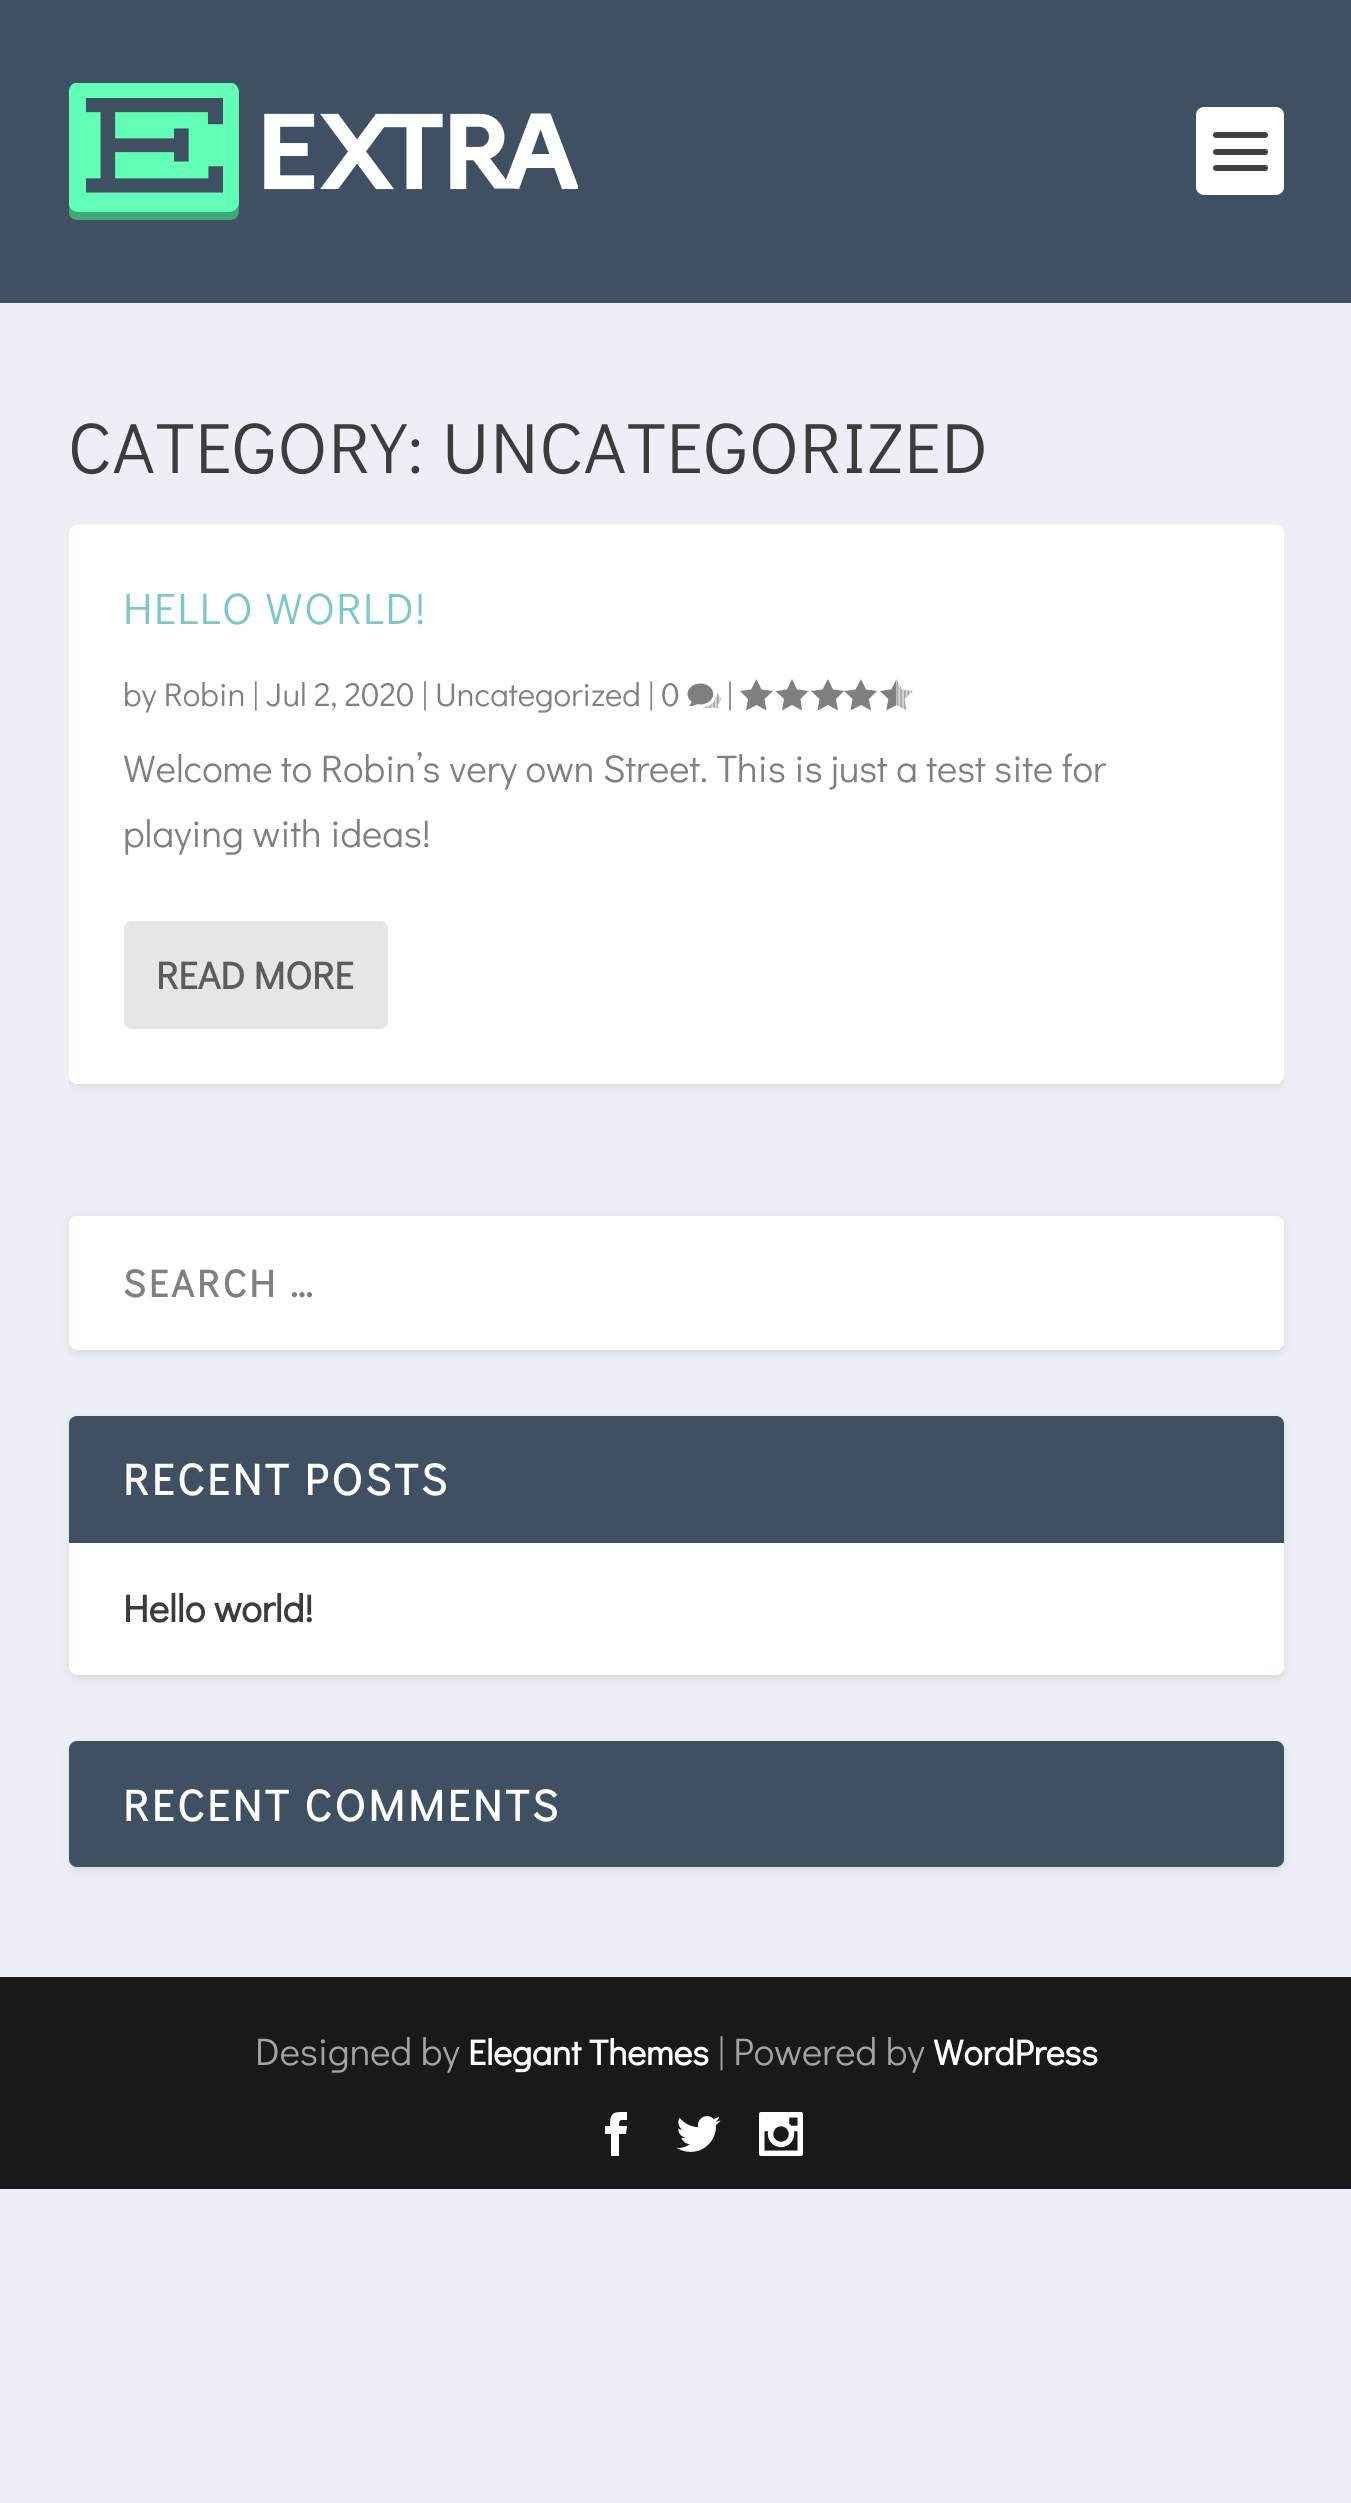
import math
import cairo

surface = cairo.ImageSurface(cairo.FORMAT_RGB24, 1351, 2503)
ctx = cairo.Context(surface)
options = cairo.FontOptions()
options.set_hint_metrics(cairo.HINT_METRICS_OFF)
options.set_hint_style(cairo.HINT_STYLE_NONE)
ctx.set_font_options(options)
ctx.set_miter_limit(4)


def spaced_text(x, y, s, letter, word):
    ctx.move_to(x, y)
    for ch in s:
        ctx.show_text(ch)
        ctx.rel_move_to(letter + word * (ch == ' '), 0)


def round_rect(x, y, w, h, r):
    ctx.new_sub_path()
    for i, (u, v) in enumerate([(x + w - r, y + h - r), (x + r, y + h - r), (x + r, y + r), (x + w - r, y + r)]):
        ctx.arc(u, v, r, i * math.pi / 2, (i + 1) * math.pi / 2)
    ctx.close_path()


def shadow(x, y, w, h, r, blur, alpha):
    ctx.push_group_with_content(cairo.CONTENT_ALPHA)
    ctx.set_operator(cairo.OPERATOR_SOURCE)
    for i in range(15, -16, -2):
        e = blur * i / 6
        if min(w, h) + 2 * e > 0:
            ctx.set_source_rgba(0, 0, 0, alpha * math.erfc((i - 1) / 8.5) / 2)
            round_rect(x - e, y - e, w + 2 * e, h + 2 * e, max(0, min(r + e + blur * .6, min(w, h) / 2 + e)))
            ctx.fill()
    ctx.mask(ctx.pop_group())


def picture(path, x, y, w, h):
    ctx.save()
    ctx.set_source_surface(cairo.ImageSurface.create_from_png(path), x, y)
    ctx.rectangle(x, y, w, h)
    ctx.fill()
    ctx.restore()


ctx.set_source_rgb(0.925, 0.941, 0.961)
ctx.paint()
ctx.set_source_rgb(0.243, 0.314, 0.384)
ctx.rectangle(0, 0, 1351, 303)
ctx.fill()
picture("img1.png", 69, 83, 509, 137)
ctx.set_source_rgb(1, 1, 1)
round_rect(1196, 107, 88, 88, 8)
ctx.fill()
ctx.set_source_rgb(0.251, 0.251, 0.251)
round_rect(1213, 132, 55, 6, 3)
ctx.fill()
round_rect(1213, 149, 55, 6, 3)
ctx.fill()
round_rect(1213, 165, 55, 6, 3)
ctx.fill()
ctx.select_font_face("Didact Gothic")
ctx.set_font_size(71.5)
ctx.set_source_rgb(0.231, 0.235, 0.239)
spaced_text(68, 473, "CATEGORY: UNCATEGORIZED", 1.4, 0)
ctx.save()
round_rect(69, 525, 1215, 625, 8)
ctx.clip()
ctx.set_source_rgb(0, 0, 0)
shadow(69, 528, 1215, 558, 8, 4, 0.1)
ctx.restore()
ctx.set_source_rgb(1, 1, 1)
round_rect(69, 525, 1215, 559, 8)
ctx.fill()
ctx.set_font_size(44)
ctx.set_source_rgb(0.478, 0.784, 0.8)
spaced_text(123, 624, "HELLO WORLD!", 1.4, 0)
ctx.set_font_size(33)
ctx.set_source_rgb(0.502, 0.502, 0.502)
ctx.move_to(123, 706)
ctx.show_text("by Robin | Jul 2, 2020 | Uncategorized | 0")
picture("img2.png", 687, 683, 34, 26)
ctx.move_to(727, 706)
ctx.show_text("|")
ctx.new_path()
ctx.move_to(773, 691)
ctx.line_to(764.5, 699)
ctx.line_to(766.5, 710.5)
ctx.line_to(756.5, 705)
ctx.line_to(746, 710.5)
ctx.line_to(748, 699)
ctx.line_to(740, 691)
ctx.line_to(751, 689.5)
ctx.line_to(756.5, 679)
ctx.line_to(761.5, 689.5)
ctx.close_path()
ctx.fill()
ctx.new_path()
ctx.move_to(808.5, 691)
ctx.line_to(800.5, 699)
ctx.line_to(802, 710.5)
ctx.line_to(792, 705)
ctx.line_to(782, 710.5)
ctx.line_to(784, 699)
ctx.line_to(775.5, 691)
ctx.line_to(787, 689.5)
ctx.line_to(792, 679)
ctx.line_to(797, 689.5)
ctx.close_path()
ctx.fill()
ctx.new_path()
ctx.move_to(844, 691)
ctx.line_to(836, 699)
ctx.line_to(838, 710.5)
ctx.line_to(828, 705)
ctx.line_to(817.5, 710.5)
ctx.line_to(819.5, 699)
ctx.line_to(811, 691)
ctx.line_to(822.5, 689.5)
ctx.line_to(828, 679)
ctx.line_to(833, 689.5)
ctx.close_path()
ctx.fill()
ctx.new_path()
ctx.move_to(877, 691)
ctx.line_to(869, 699)
ctx.line_to(871, 710.5)
ctx.line_to(861, 705)
ctx.line_to(850.5, 710.5)
ctx.line_to(852.5, 699)
ctx.line_to(844, 691)
ctx.line_to(855.5, 689.5)
ctx.line_to(861, 679)
ctx.line_to(866, 689.5)
ctx.close_path()
ctx.fill()
picture("img3.png", 880, 679, 33, 32)
ctx.set_font_size(38.5)
ctx.move_to(123, 782)
ctx.show_text("Welcome to Robin’s very own Street. This is just a test site for")
ctx.move_to(123, 847)
ctx.show_text("playing with ideas!")
ctx.set_source_rgb(0.902, 0.902, 0.902)
round_rect(124, 921, 264, 108, 8)
ctx.fill()
ctx.select_font_face("Didact Gothic", cairo.FONT_SLANT_NORMAL, cairo.FONT_WEIGHT_BOLD)
ctx.set_source_rgb(0.361, 0.361, 0.361)
ctx.move_to(156, 989)
ctx.show_text("READ MORE")
ctx.set_source_rgb(0, 0, 0)
shadow(69, 1218, 1215, 135, 8, 4, 0.1)
ctx.set_source_rgb(1, 1, 1)
round_rect(69, 1216, 1215, 134, 8)
ctx.fill()
ctx.set_source_rgb(0.502, 0.502, 0.502)
spaced_text(123, 1297, "SEARCH …", 3.25, 0)
ctx.set_source_rgb(0, 0, 0)
shadow(69, 1419, 1215, 259, 8, 4, 0.1)
ctx.set_source_rgb(1, 1, 1)
round_rect(69, 1416, 1215, 259, 8)
ctx.fill()
ctx.set_source_rgb(0.243, 0.314, 0.384)
ctx.new_path()
ctx.move_to(77, 1416)
ctx.line_to(1276, 1416)
ctx.curve_to(1280.5, 1416, 1284, 1419.5, 1284, 1424)
ctx.line_to(1284, 1543)
ctx.line_to(69, 1543)
ctx.line_to(69, 1424)
ctx.curve_to(69, 1419.5, 72.5, 1416, 77, 1416)
ctx.close_path()
ctx.fill()
ctx.set_font_size(44)
ctx.set_source_rgb(1, 1, 1)
spaced_text(123, 1495, "RECENT POSTS", 3.25, 0)
ctx.set_font_size(38.5)
ctx.set_source_rgb(0.231, 0.235, 0.239)
ctx.move_to(123, 1622)
ctx.show_text("Hello world!")
ctx.set_source_rgb(0, 0, 0)
shadow(69, 1744, 1215, 126, 8, 4, 0.1)
ctx.set_source_rgb(0.243, 0.314, 0.384)
round_rect(69, 1741, 1215, 126, 8)
ctx.fill()
ctx.set_font_size(44)
ctx.set_source_rgb(1, 1, 1)
spaced_text(123, 1821, "RECENT COMMENTS", 3.25, 0)
ctx.set_source_rgb(0.098, 0.098, 0.098)
ctx.rectangle(0, 1977, 1351, 212)
ctx.fill()
ctx.select_font_face("Didact Gothic")
ctx.set_font_size(38.5)
ctx.set_source_rgb(0.639, 0.639, 0.639)
ctx.move_to(255, 2065)
ctx.show_text("Designed by")
ctx.select_font_face("Didact Gothic", cairo.FONT_SLANT_NORMAL, cairo.FONT_WEIGHT_BOLD)
ctx.set_font_size(35.75)
ctx.set_source_rgb(1, 1, 1)
ctx.move_to(468, 2065)
ctx.show_text("Elegant Themes")
ctx.select_font_face("Didact Gothic")
ctx.set_font_size(38.5)
ctx.set_source_rgb(0.639, 0.639, 0.639)
ctx.move_to(718, 2065)
ctx.show_text("| Powered by")
ctx.select_font_face("Didact Gothic", cairo.FONT_SLANT_NORMAL, cairo.FONT_WEIGHT_BOLD)
ctx.set_font_size(35.75)
ctx.set_source_rgb(1, 1, 1)
ctx.move_to(933, 2065)
ctx.show_text("WordPress")
ctx.new_path()
ctx.move_to(619, 2156)
ctx.line_to(611, 2156)
ctx.line_to(611, 2134)
ctx.line_to(605, 2134)
ctx.line_to(605, 2126)
ctx.line_to(610, 2126)
ctx.curve_to(610, 2111, 614, 2112, 627, 2112)
ctx.line_to(627, 2120)
ctx.curve_to(620, 2120, 619, 2119, 619, 2126)
ctx.line_to(627, 2126)
ctx.line_to(626, 2134)
ctx.line_to(619, 2134)
ctx.close_path()
ctx.fill()
picture("img4.png", 676, 2116, 45, 36)
picture("img5.png", 759, 2112, 44, 44)
surface.write_to_png("page.png")
